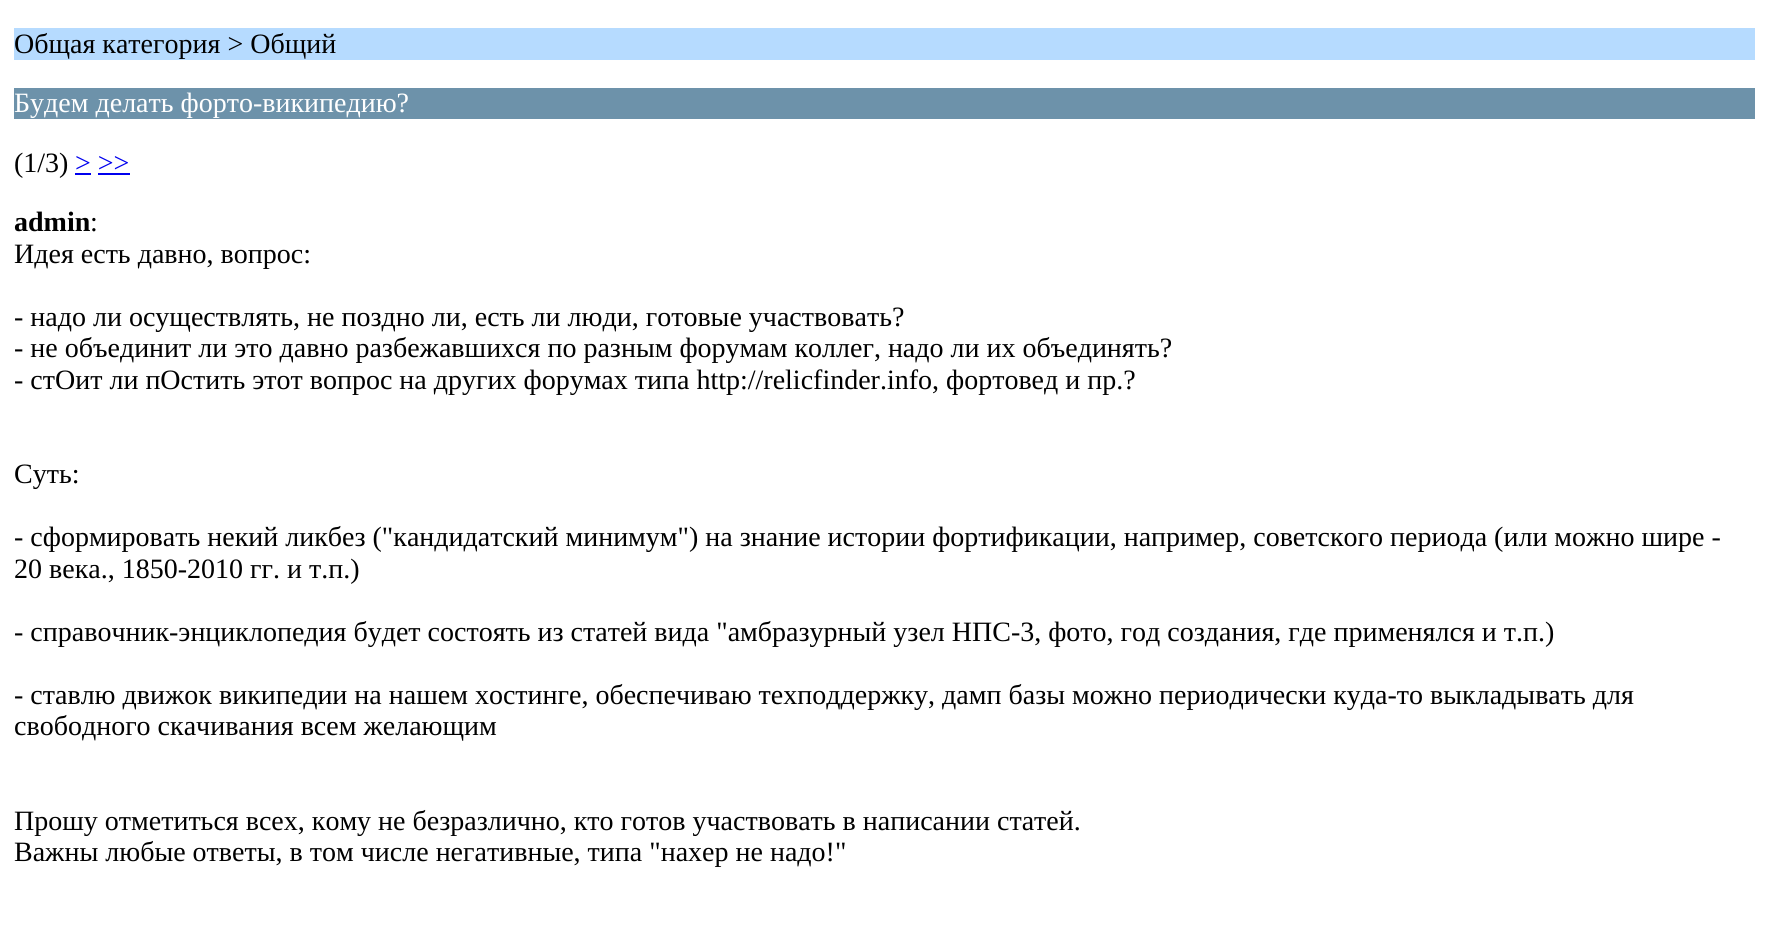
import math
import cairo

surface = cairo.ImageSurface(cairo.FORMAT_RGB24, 1768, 947)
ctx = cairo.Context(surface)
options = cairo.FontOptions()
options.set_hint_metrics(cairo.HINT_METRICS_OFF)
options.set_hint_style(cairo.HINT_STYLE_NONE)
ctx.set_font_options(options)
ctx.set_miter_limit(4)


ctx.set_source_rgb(1, 1, 1)
ctx.paint()
ctx.set_source_rgb(0.714, 0.859, 1)
ctx.rectangle(14, 28, 1741, 32)
ctx.fill()
ctx.select_font_face("Liberation Serif")
ctx.set_font_size(28)
ctx.set_source_rgb(0, 0, 0)
ctx.move_to(14, 53)
ctx.show_text("Общая категория > Общий")
ctx.set_source_rgb(0.427, 0.573, 0.667)
ctx.rectangle(14, 88, 1741, 31)
ctx.fill()
ctx.set_source_rgb(1, 1, 1)
ctx.move_to(14, 112)
ctx.show_text("Будем делать форто-википедию?")
ctx.set_source_rgb(0, 0, 0)
ctx.move_to(14, 172)
ctx.show_text("(1/3)")
ctx.set_source_rgb(0, 0, 0.933)
ctx.move_to(75, 172)
ctx.show_text("> >>")
ctx.rectangle(75, 173, 16, 2)
ctx.fill()
ctx.rectangle(98, 173, 32, 2)
ctx.fill()
ctx.select_font_face("Liberation Serif", cairo.FONT_SLANT_NORMAL, cairo.FONT_WEIGHT_BOLD)
ctx.set_source_rgb(0, 0, 0)
ctx.move_to(14, 231)
ctx.show_text("admin")
ctx.select_font_face("Liberation Serif")
ctx.move_to(90, 231)
ctx.show_text(":")
ctx.move_to(14, 263)
ctx.show_text("Идея есть давно, вопрос:")
ctx.move_to(14, 326)
ctx.show_text("- надо ли осуществлять, не поздно ли, есть ли люди, готовые участвовать?")
ctx.move_to(14, 357)
ctx.show_text("- не объединит ли это давно разбежавшихся по разным форумам коллег, надо ли их объединять?")
ctx.move_to(14, 389)
ctx.show_text("- стОит ли пОстить этот вопрос на других форумах типа http://relicfinder.info, фортовед и пр.?")
ctx.move_to(14, 483)
ctx.show_text("Суть:")
ctx.move_to(14, 546)
ctx.show_text("- сформировать некий ликбез (\"кандидатский минимум\") на знание истории фортификации, например, советского периода (или можно шире -")
ctx.move_to(14, 578)
ctx.show_text("20 века., 1850-2010 гг. и т.п.)")
ctx.move_to(14, 641)
ctx.show_text("- справочник-энциклопедия будет состоять из статей вида \"амбразурный узел НПС-3, фото, год создания, где применялся и т.п.)")
ctx.move_to(14, 704)
ctx.show_text("- ставлю движок википедии на нашем хостинге, обеспечиваю техподдержку, дамп базы можно периодически куда-то выкладывать для")
ctx.move_to(14, 735)
ctx.show_text("свободного скачивания всем желающим")
ctx.move_to(14, 830)
ctx.show_text("Прошу отметиться всех, кому не безразлично, кто готов участвовать в написании статей.")
ctx.move_to(14, 861)
ctx.show_text("Важны любые ответы, в том числе негативные, типа \"нахер не надо!\"")
surface.write_to_png("page.png")
